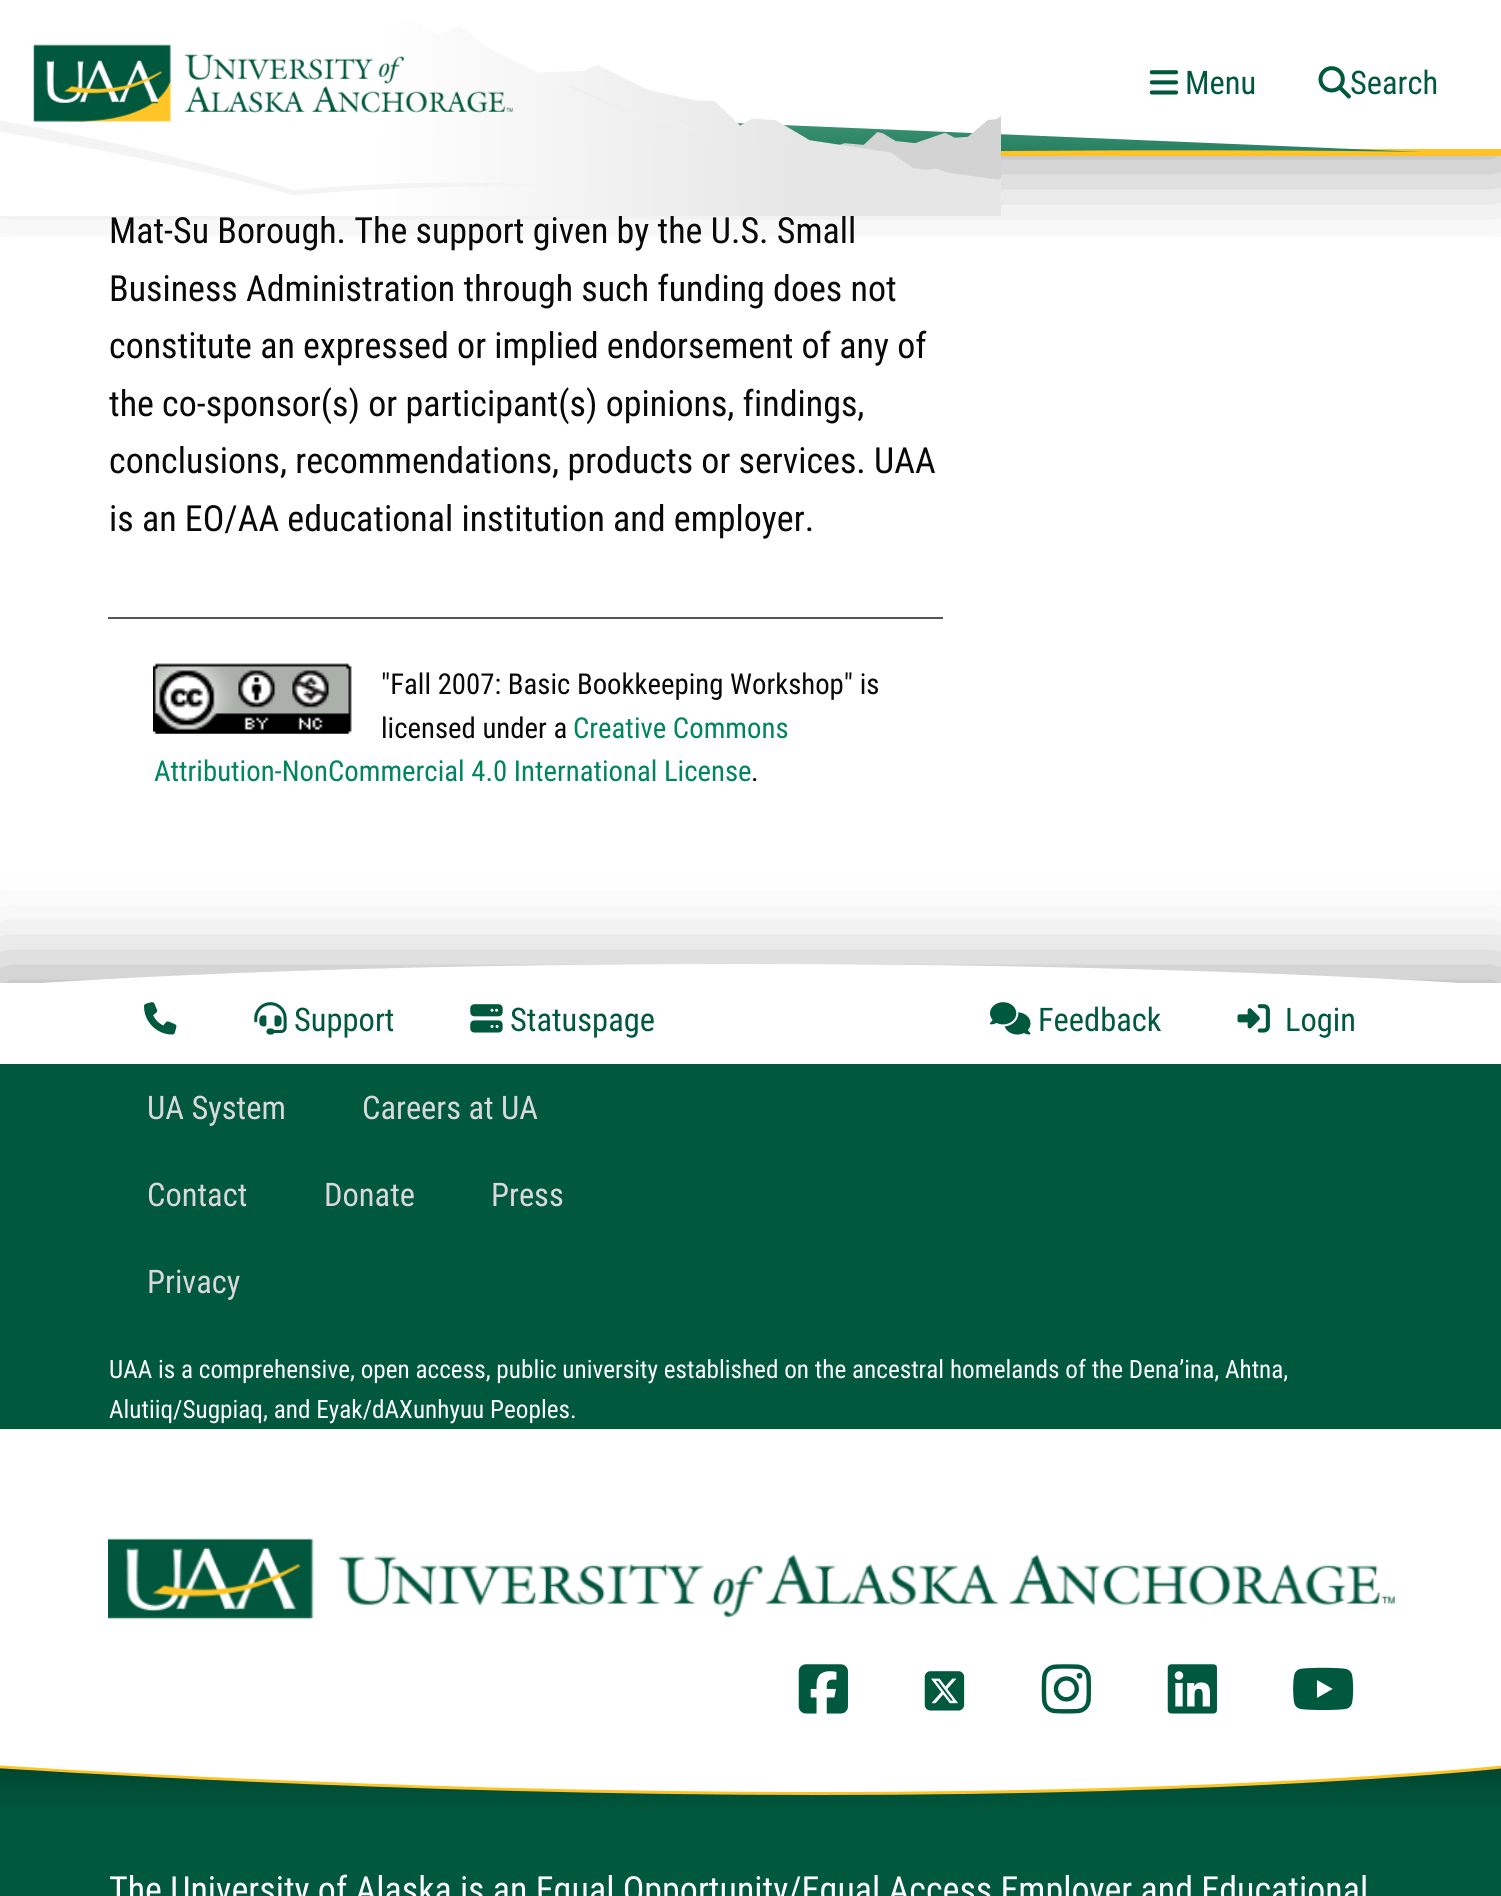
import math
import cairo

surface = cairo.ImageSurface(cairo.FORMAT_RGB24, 1501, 1896)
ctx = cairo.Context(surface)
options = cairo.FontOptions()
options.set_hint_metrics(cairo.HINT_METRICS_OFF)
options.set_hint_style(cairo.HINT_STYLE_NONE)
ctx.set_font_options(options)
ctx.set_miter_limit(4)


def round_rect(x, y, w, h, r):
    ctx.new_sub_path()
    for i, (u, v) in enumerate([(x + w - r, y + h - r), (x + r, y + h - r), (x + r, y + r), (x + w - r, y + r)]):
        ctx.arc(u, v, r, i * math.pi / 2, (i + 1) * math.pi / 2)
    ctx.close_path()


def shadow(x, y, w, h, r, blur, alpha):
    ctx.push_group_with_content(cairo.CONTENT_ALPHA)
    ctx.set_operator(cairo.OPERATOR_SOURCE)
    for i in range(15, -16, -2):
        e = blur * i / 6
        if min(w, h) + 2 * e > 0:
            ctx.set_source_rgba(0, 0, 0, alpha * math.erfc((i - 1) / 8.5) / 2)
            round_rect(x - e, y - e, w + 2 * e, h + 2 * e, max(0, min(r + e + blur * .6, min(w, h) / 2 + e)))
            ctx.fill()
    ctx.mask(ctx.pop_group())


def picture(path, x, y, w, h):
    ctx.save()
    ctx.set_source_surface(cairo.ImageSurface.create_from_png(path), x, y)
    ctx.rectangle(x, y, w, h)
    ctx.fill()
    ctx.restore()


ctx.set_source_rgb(1, 1, 1)
ctx.paint()
ctx.save()
ctx.rectangle(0, 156, 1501, 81)
ctx.clip()
ctx.set_source_rgb(0, 0, 0)
shadow(-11, -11, 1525, 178, 0, 45, 0.33)
ctx.restore()
ctx.set_source_rgb(1, 0.765, 0.145)
ctx.rectangle(1001, 149, 500, 7)
ctx.fill()
picture("img3.png", 1149, 70, 30, 25)
ctx.select_font_face("Roboto Condensed")
ctx.set_font_size(32.5)
ctx.set_source_rgb(0, 0.345, 0.239)
ctx.move_to(1185, 94)
ctx.show_text("Menu")
picture("img4.png", 1318, 66, 33, 33)
ctx.move_to(1350, 94)
ctx.show_text("Search")
gradient = cairo.LinearGradient(709, 92, 709, 214)
gradient.add_color_stop_rgba(0, 0.306, 0.651, 0.522, 1)
gradient.add_color_stop_rgba(1, 0, 0.345, 0.239, 1)
ctx.set_source(gradient)
ctx.new_path()
ctx.move_to(-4, 92)
ctx.line_to(1423, 152)
ctx.curve_to(1338, 150, 298, 139, -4, 214)
ctx.close_path()
ctx.fill()
picture("img1.png", 0, 1, 1001, 215)
picture("img2.png", 33, 44, 480, 78)
ctx.set_font_size(36)
ctx.set_source_rgb(0.039, 0.039, 0.039)
ctx.move_to(109, 243)
ctx.show_text("Mat-Su Borough. The support given by the U.S. Small")
ctx.move_to(109, 301)
ctx.show_text("Business Administration through such funding does not")
ctx.move_to(109, 358)
ctx.show_text("constitute an expressed or implied endorsement of any of")
ctx.move_to(109, 416)
ctx.show_text("the co-sponsor(s) or participant(s) opinions, findings,")
ctx.move_to(109, 473)
ctx.show_text("conclusions, recommendations, products or services. UAA")
ctx.move_to(109, 531)
ctx.show_text("is an EO/AA educational institution and employer.")
ctx.set_source_rgb(0.333, 0.333, 0.333)
ctx.rectangle(108, 617, 835, 2)
ctx.fill()
picture("img5.png", 153, 663, 199, 71)
ctx.set_font_size(28.8)
ctx.set_source_rgb(0.039, 0.039, 0.039)
ctx.move_to(381, 694)
ctx.show_text("\"Fall 2007: Basic Bookkeeping Workshop\" is")
ctx.move_to(381, 738)
ctx.show_text("licensed under a")
ctx.set_source_rgb(0, 0.522, 0.373)
ctx.move_to(573, 738)
ctx.show_text("Creative Commons")
ctx.move_to(154, 781)
ctx.show_text("Attribution-NonCommercial 4.0 International License")
ctx.set_source_rgb(0.039, 0.039, 0.039)
ctx.move_to(751, 781)
ctx.show_text(".")
ctx.save()
ctx.set_fill_rule(cairo.FILL_RULE_EVEN_ODD)
ctx.new_path()
ctx.move_to(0, 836)
ctx.line_to(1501, 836)
ctx.line_to(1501, 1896)
ctx.line_to(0, 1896)
ctx.close_path()
ctx.move_to(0, 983)
ctx.line_to(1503, 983)
ctx.line_to(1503, 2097)
ctx.line_to(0, 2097)
ctx.close_path()
ctx.clip()
ctx.set_source_rgb(0, 0, 0)
shadow(-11, 972, 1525, 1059, 0, 45, 0.33)
ctx.restore()
gradient = cairo.LinearGradient(751, 983, 752, 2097)
gradient.add_color_stop_rgba(0, 1, 1, 1, 0.8)
gradient.add_color_stop_rgba(1, 1, 1, 1, 1)
ctx.set_source(gradient)
ctx.rectangle(0, 983, 1501, 1)
ctx.fill()
ctx.set_source_rgb(1, 1, 1)
ctx.new_path()
ctx.move_to(0, 986)
ctx.curve_to(0, 986, 259, 964, 741, 964)
ctx.curve_to(1223, 964, 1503, 986, 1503, 986)
ctx.close_path()
ctx.fill()
picture("img6.png", 144, 1002, 33, 33)
picture("img7.png", 254, 1002, 33, 33)
ctx.set_font_size(32.5)
ctx.set_source_rgb(0, 0.345, 0.239)
ctx.move_to(294, 1031)
ctx.show_text("Support")
picture("img8.png", 470, 1004, 33, 29)
ctx.move_to(510, 1031)
ctx.show_text("Statuspage")
picture("img9.png", 990, 1002, 41, 33)
ctx.move_to(1038, 1031)
ctx.show_text("Feedback")
picture("img10.png", 1237, 1004, 33, 29)
ctx.move_to(1285, 1031)
ctx.show_text("Login")
ctx.rectangle(0, 1064, 1501, 365)
ctx.fill()
ctx.set_source_rgb(0.851, 0.851, 0.851)
ctx.move_to(147, 1119)
ctx.show_text("UA System")
ctx.move_to(362, 1119)
ctx.show_text("Careers at UA")
ctx.move_to(147, 1206)
ctx.show_text("Contact")
ctx.move_to(324, 1206)
ctx.show_text("Donate")
ctx.move_to(491, 1206)
ctx.show_text("Press")
ctx.move_to(147, 1293)
ctx.show_text("Privacy")
ctx.set_font_size(25.2)
ctx.set_source_rgb(0.996, 0.996, 0.996)
ctx.move_to(109, 1378)
ctx.show_text("UAA is a comprehensive, open access, public university established on the ancestral homelands of the Dena’ina, Ahtna,")
ctx.move_to(109, 1418)
ctx.show_text("Alutiiq/Sugpiaq, and Eyak/dAXunhyuu Peoples.")
picture("img11.png", 108, 1538, 1287, 81)
picture("img12.png", 798, 1664, 50, 50)
picture("img13.png", 924, 1671, 41, 40)
picture("img14.png", 1041, 1664, 50, 50)
picture("img15.png", 1167, 1664, 50, 50)
picture("img16.png", 1293, 1667, 61, 43)
ctx.set_source_rgb(0, 0.345, 0.239)
ctx.rectangle(0, 1838, 1501, 58)
ctx.fill()
ctx.save()
ctx.rectangle(0, 1760, 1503, 78)
ctx.clip()
ctx.set_source_rgb(1, 0.765, 0.145)
ctx.new_path()
ctx.move_to(-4, 1841)
ctx.line_to(-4, 1769)
ctx.curve_to(22, 1771, 396, 1796, 819, 1796)
ctx.curve_to(1239, 1796, 1484, 1771, 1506, 1769)
ctx.line_to(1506, 1841)
ctx.line_to(-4, 1841)
ctx.move_to(-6, 1843)
ctx.line_to(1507, 1842)
ctx.line_to(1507, 1765)
ctx.curve_to(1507, 1765, 1261, 1792, 819, 1792)
ctx.curve_to(377, 1792, -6, 1765, -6, 1765)
ctx.close_path()
ctx.fill()
gradient = cairo.LinearGradient(751, 1768, 751, 1842)
gradient.add_color_stop_rgba(0, 0, 0.275, 0.192, 1)
gradient.add_color_stop_rgba(0.6, 0, 0.345, 0.239, 1)
ctx.set_source(gradient)
ctx.new_path()
ctx.move_to(-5, 1768)
ctx.curve_to(14, 1769, 392, 1795, 819, 1795)
ctx.curve_to(1244, 1795, 1491, 1770, 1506, 1768)
ctx.line_to(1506, 1841)
ctx.line_to(-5, 1842)
ctx.close_path()
ctx.fill()
ctx.restore()
ctx.set_font_size(36)
ctx.set_source_rgb(0.996, 0.996, 0.996)
ctx.move_to(109, 1902)
ctx.show_text("The University of Alaska is an Equal Opportunity/Equal Access Employer and Educational")
surface.write_to_png("page.png")
